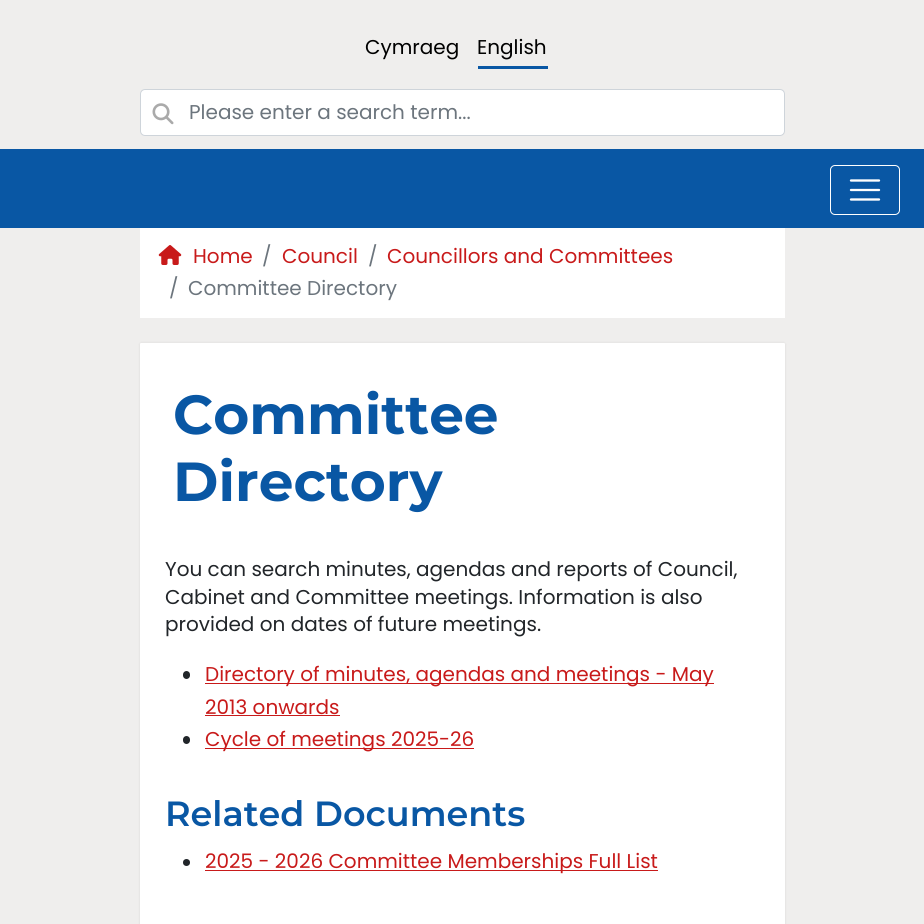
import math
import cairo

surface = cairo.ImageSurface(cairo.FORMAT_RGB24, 924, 924)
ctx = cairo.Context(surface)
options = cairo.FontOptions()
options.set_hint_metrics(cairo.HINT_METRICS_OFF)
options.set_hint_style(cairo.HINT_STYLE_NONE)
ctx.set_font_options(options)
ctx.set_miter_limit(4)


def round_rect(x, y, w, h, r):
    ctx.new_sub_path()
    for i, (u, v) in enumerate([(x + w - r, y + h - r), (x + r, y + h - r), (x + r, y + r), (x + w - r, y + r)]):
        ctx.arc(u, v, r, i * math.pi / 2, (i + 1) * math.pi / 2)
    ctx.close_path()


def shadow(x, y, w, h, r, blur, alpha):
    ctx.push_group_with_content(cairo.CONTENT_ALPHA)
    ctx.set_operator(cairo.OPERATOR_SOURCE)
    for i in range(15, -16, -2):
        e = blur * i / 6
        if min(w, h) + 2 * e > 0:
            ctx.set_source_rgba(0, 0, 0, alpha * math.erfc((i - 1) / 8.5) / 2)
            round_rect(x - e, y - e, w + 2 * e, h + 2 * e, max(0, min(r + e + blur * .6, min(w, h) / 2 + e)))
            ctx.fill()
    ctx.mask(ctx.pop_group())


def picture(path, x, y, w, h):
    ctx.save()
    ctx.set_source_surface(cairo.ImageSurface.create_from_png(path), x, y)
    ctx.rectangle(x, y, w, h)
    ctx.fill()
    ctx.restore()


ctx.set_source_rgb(0.937, 0.933, 0.929)
ctx.paint()
ctx.select_font_face("Poppins")
ctx.set_font_size(20)
ctx.set_source_rgb(0, 0, 0)
ctx.move_to(365, 54)
ctx.show_text("Cymraeg")
ctx.move_to(477, 54)
ctx.show_text("English")
ctx.set_source_rgb(0.039, 0.341, 0.643)
ctx.rectangle(478, 66, 70, 3)
ctx.fill()
ctx.set_source_rgb(1, 1, 1)
round_rect(140.5, 89.5, 644, 46, 4.5)
ctx.fill_preserve()
ctx.set_source_rgb(0.808, 0.831, 0.855)
ctx.set_line_width(1)
ctx.stroke()
picture("img1.png", 152, 103, 22, 22)
ctx.set_source_rgb(0.424, 0.459, 0.49)
ctx.move_to(189, 119)
ctx.show_text("Please enter a search term...")
ctx.set_source_rgb(0.039, 0.341, 0.643)
ctx.rectangle(0, 149, 924, 79)
ctx.fill()
round_rect(830.5, 165.5, 69, 49, 4.5)
ctx.set_source_rgb(1, 1, 1)
ctx.stroke()
ctx.new_path()
ctx.move_to(851, 180.5)
ctx.line_to(879, 180.5)
ctx.move_to(851, 190)
ctx.line_to(879, 190)
ctx.move_to(851, 199.5)
ctx.line_to(879, 199.5)
ctx.set_line_width(2.3)
ctx.set_line_cap(cairo.LINE_CAP_ROUND)
ctx.stroke()
ctx.rectangle(140, 228, 645, 90)
ctx.fill()
picture("img2.png", 158, 245, 24, 20)
ctx.set_source_rgb(0.784, 0.102, 0.102)
ctx.move_to(193, 263)
ctx.show_text("Home")
ctx.set_source_rgb(0.424, 0.459, 0.49)
ctx.move_to(262, 263)
ctx.show_text("/")
ctx.set_source_rgb(0.784, 0.102, 0.102)
ctx.move_to(282, 263)
ctx.show_text("Council")
ctx.set_source_rgb(0.424, 0.459, 0.49)
ctx.move_to(368, 263)
ctx.show_text("/")
ctx.set_source_rgb(0.784, 0.102, 0.102)
ctx.move_to(387, 263)
ctx.show_text("Councillors and Committees")
ctx.set_source_rgb(0.424, 0.459, 0.49)
ctx.move_to(169, 295)
ctx.show_text("/")
ctx.move_to(188, 295)
ctx.show_text("Committee Directory")
ctx.set_source_rgb(0, 0, 0)
shadow(140, 343, 645, 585, 1, 1, 0.1)
ctx.set_source_rgb(1, 1, 1)
round_rect(140, 343, 645, 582, 1)
ctx.fill()
ctx.select_font_face("Montserrat", cairo.FONT_SLANT_NORMAL, cairo.FONT_WEIGHT_BOLD)
ctx.set_font_size(55)
ctx.set_source_rgb(0.039, 0.341, 0.643)
ctx.move_to(173, 434)
ctx.show_text("Committee")
ctx.move_to(173, 501)
ctx.show_text("Directory")
ctx.select_font_face("Poppins")
ctx.set_font_size(20)
ctx.set_source_rgb(0.129, 0.145, 0.161)
ctx.move_to(165, 576)
ctx.show_text("You can search minutes, agendas and reports of Council,")
ctx.move_to(165, 604)
ctx.show_text("Cabinet and Committee meetings. Information is also")
ctx.move_to(165, 631)
ctx.show_text("provided on dates of future meetings.")
round_rect(183, 671, 7, 8, 3.5)
ctx.fill()
ctx.set_source_rgb(0.784, 0.102, 0.102)
ctx.rectangle(205, 683, 509, 1)
ctx.fill()
ctx.move_to(205, 681)
ctx.show_text("Directory of minutes, agendas and meetings - May")
ctx.move_to(205, 714)
ctx.show_text("2013 onwards")
ctx.rectangle(205, 715, 135, 1)
ctx.fill()
ctx.set_source_rgb(0.129, 0.145, 0.161)
round_rect(183, 736, 7, 8, 3.5)
ctx.fill()
ctx.set_source_rgb(0.784, 0.102, 0.102)
ctx.rectangle(205, 748, 269, 1)
ctx.fill()
ctx.move_to(205, 746)
ctx.show_text("Cycle of meetings 2025-26")
ctx.select_font_face("Montserrat SemiBold")
ctx.set_font_size(35)
ctx.set_source_rgb(0.039, 0.341, 0.643)
ctx.move_to(165, 826)
ctx.show_text("Related Documents")
ctx.set_source_rgb(0.129, 0.145, 0.161)
ctx.new_path()
ctx.arc(186.5, 862.5, 3.5, 0, 2 * math.pi)
ctx.fill()
ctx.set_source_rgb(0.784, 0.102, 0.102)
ctx.rectangle(205, 870, 453, 1)
ctx.fill()
ctx.select_font_face("Poppins")
ctx.set_font_size(20)
ctx.move_to(205, 868)
ctx.show_text("2025 - 2026 Committee Memberships Full List")
surface.write_to_png("page.png")
